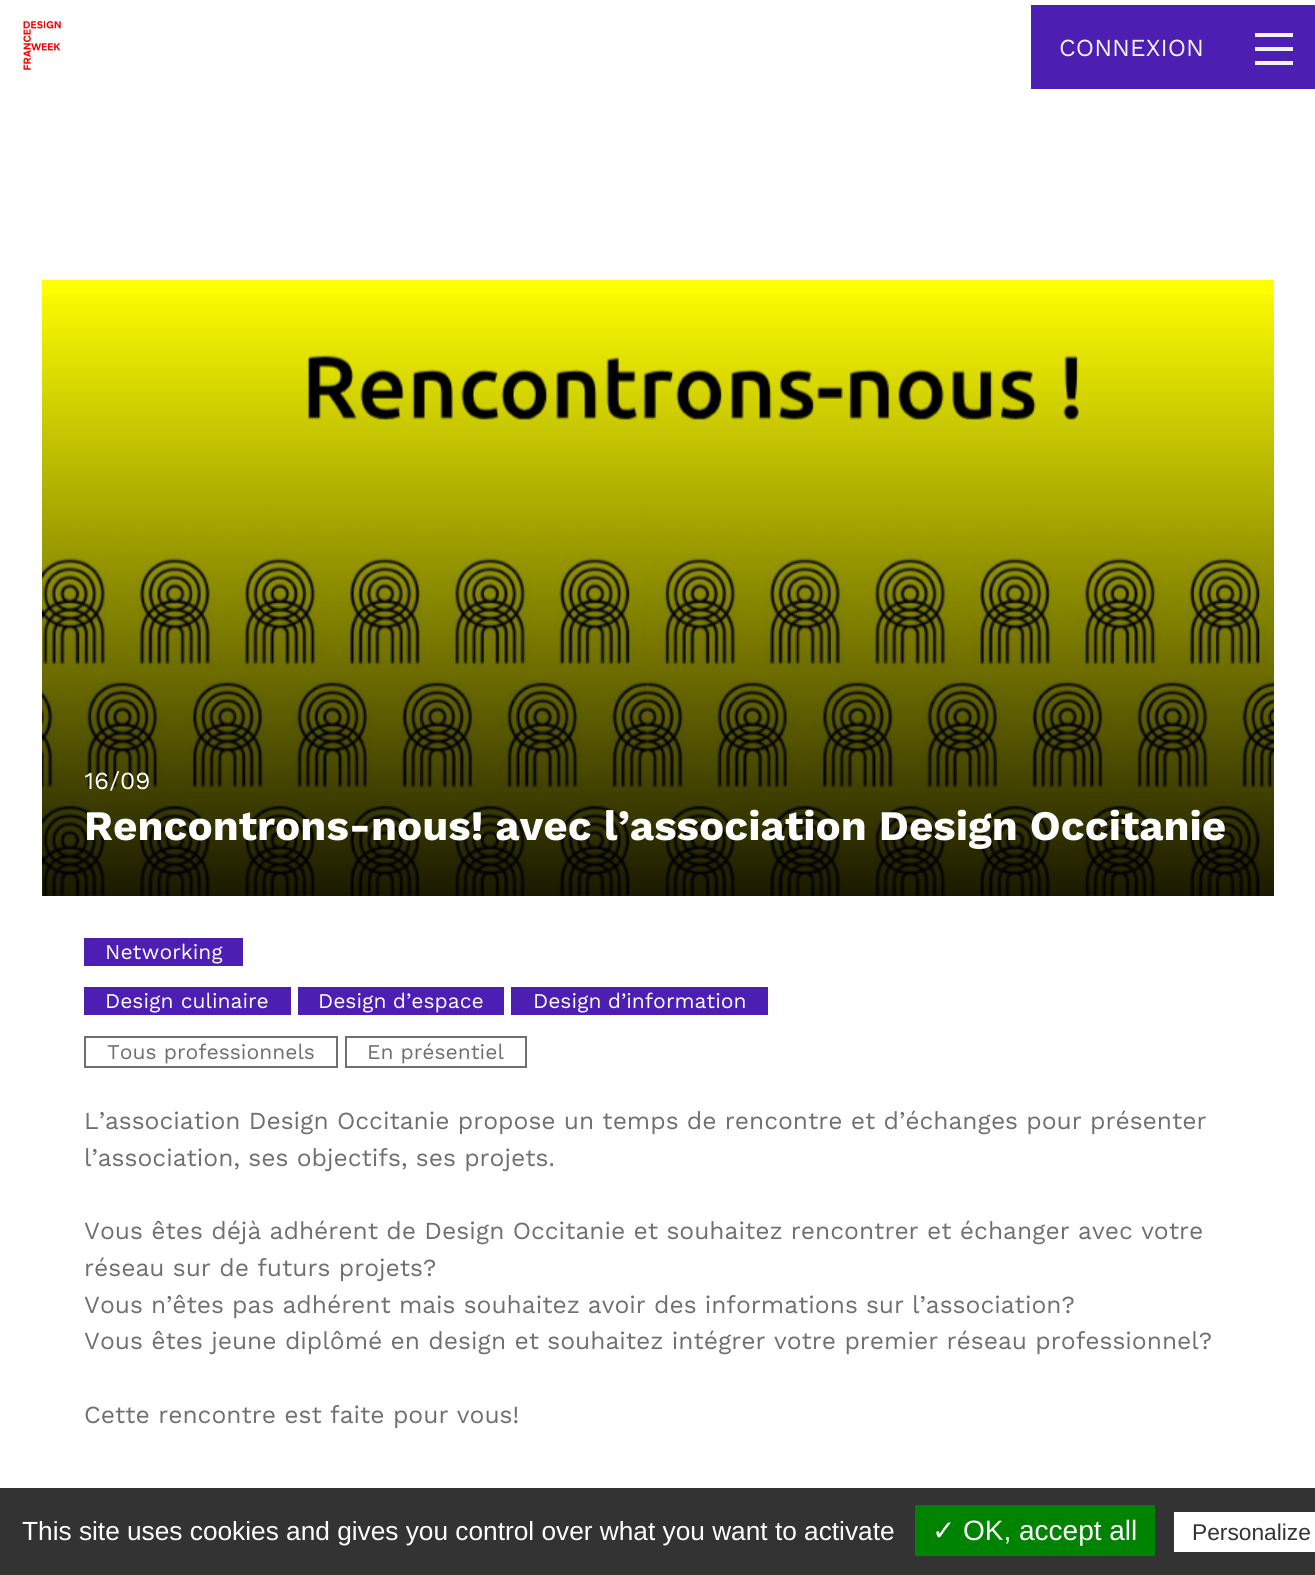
import math
import cairo

surface = cairo.ImageSurface(cairo.FORMAT_RGB24, 1315, 1575)
ctx = cairo.Context(surface)
options = cairo.FontOptions()
options.set_hint_metrics(cairo.HINT_METRICS_OFF)
options.set_hint_style(cairo.HINT_STYLE_NONE)
ctx.set_font_options(options)
ctx.set_miter_limit(4)


def spaced_text(x, y, s, letter, word):
    ctx.move_to(x, y)
    for ch in s:
        ctx.show_text(ch)
        ctx.rel_move_to(letter + word * (ch == ' '), 0)


def picture(path, x, y, w, h):
    ctx.save()
    ctx.set_source_surface(cairo.ImageSurface.create_from_png(path), x, y)
    ctx.rectangle(x, y, w, h)
    ctx.fill()
    ctx.restore()


ctx.set_source_rgb(1, 1, 1)
ctx.paint()
picture("img1.png", 23, 21, 38, 49)
ctx.set_source_rgb(0.302, 0.118, 0.698)
ctx.rectangle(1031, 5, 284, 84)
ctx.fill()
ctx.select_font_face("Work Sans")
ctx.set_font_size(24.5)
ctx.set_source_rgb(0.949, 0.949, 0.949)
ctx.move_to(1059, 56)
ctx.show_text("CONNEXION")
ctx.rectangle(1255, 33, 38, 4)
ctx.fill()
ctx.rectangle(1255, 47, 38, 4)
ctx.fill()
ctx.rectangle(1255, 61, 38, 4)
ctx.fill()
picture("img2.png", 42, 280, 1232, 616)
gradient = cairo.LinearGradient(658, 896, 658, 280)
gradient.add_color_stop_rgba(0, 0, 0, 0, 0.9)
gradient.add_color_stop_rgba(1, 0, 0, 0, 0)
ctx.set_source(gradient)
ctx.rectangle(42, 295, 1232, 601)
ctx.fill()
ctx.set_source_rgb(1, 1, 1)
ctx.move_to(84, 789)
ctx.show_text("16/09")
ctx.select_font_face("Work Sans", cairo.FONT_SLANT_NORMAL, cairo.FONT_WEIGHT_BOLD)
ctx.set_font_size(42)
ctx.move_to(84, 840)
ctx.show_text("Rencontrons-nous! avec l’association Design Occitanie")
ctx.set_source_rgb(0.302, 0.118, 0.698)
ctx.rectangle(84, 938, 159, 28)
ctx.fill()
ctx.select_font_face("Work Sans")
ctx.set_font_size(21)
ctx.set_source_rgb(1, 1, 1)
ctx.move_to(105, 959)
ctx.show_text("Networking")
ctx.set_source_rgb(0.302, 0.118, 0.698)
ctx.rectangle(84, 987, 207, 28)
ctx.fill()
ctx.set_source_rgb(1, 1, 1)
ctx.move_to(105, 1008)
ctx.show_text("Design culinaire")
ctx.set_source_rgb(0.302, 0.118, 0.698)
ctx.rectangle(298, 987, 206, 28)
ctx.fill()
ctx.set_source_rgb(1, 1, 1)
spaced_text(318, 1008, "Design d’espace", 0, -1)
ctx.set_source_rgb(0.302, 0.118, 0.698)
ctx.rectangle(511, 987, 257, 28)
ctx.fill()
ctx.set_source_rgb(1, 1, 1)
spaced_text(533, 1008, "Design d’information", 0, -1)
ctx.rectangle(85, 1037, 252, 30)
ctx.set_source_rgb(0.439, 0.435, 0.435)
ctx.stroke()
ctx.move_to(107, 1059)
ctx.show_text("Tous professionnels")
ctx.rectangle(346, 1037, 180, 30)
ctx.stroke()
ctx.move_to(367, 1059)
ctx.show_text("En présentiel")
ctx.set_font_size(24.5)
spaced_text(84, 1129, "L’association Design Occitanie propose un temps de rencontre et d’échanges pour présenter", 0, -0.1)
ctx.move_to(84, 1166)
ctx.show_text("l’association, ses objectifs, ses projets.")
ctx.move_to(84, 1239)
ctx.show_text("Vous êtes déjà adhérent de Design Occitanie et souhaitez rencontrer et échanger avec votre")
ctx.move_to(84, 1276)
ctx.show_text("réseau sur de futurs projets?")
spaced_text(84, 1313, "Vous n’êtes pas adhérent mais souhaitez avoir des informations sur l’association?", 0, -0.25)
ctx.move_to(84, 1349)
ctx.show_text("Vous êtes jeune diplômé en design et souhaitez intégrer votre premier réseau professionnel?")
ctx.move_to(84, 1423)
ctx.show_text("Cette rencontre est faite pour vous!")
ctx.set_source_rgb(0.2, 0.2, 0.2)
ctx.rectangle(0, 1488, 1315, 87)
ctx.fill()
ctx.select_font_face("Liberation Sans")
ctx.set_font_size(26.25)
ctx.set_source_rgb(1, 1, 1)
ctx.move_to(22, 1540)
ctx.show_text("This site uses cookies and gives you control over what you want to activate")
ctx.set_source_rgb(0, 0.514, 0)
ctx.rectangle(915, 1505, 240, 51)
ctx.fill()
ctx.select_font_face("DejaVu Sans")
ctx.set_font_size(28)
ctx.set_source_rgb(1, 1, 1)
ctx.move_to(932, 1540)
ctx.show_text("✓")
ctx.select_font_face("Liberation Sans")
ctx.move_to(963, 1540)
ctx.show_text("OK, accept all")
ctx.rectangle(1174, 1512, 141, 40)
ctx.fill()
ctx.set_font_size(22.75)
ctx.set_source_rgb(0.2, 0.2, 0.2)
ctx.move_to(1192, 1540)
ctx.show_text("Personalize")
surface.write_to_png("page.png")
